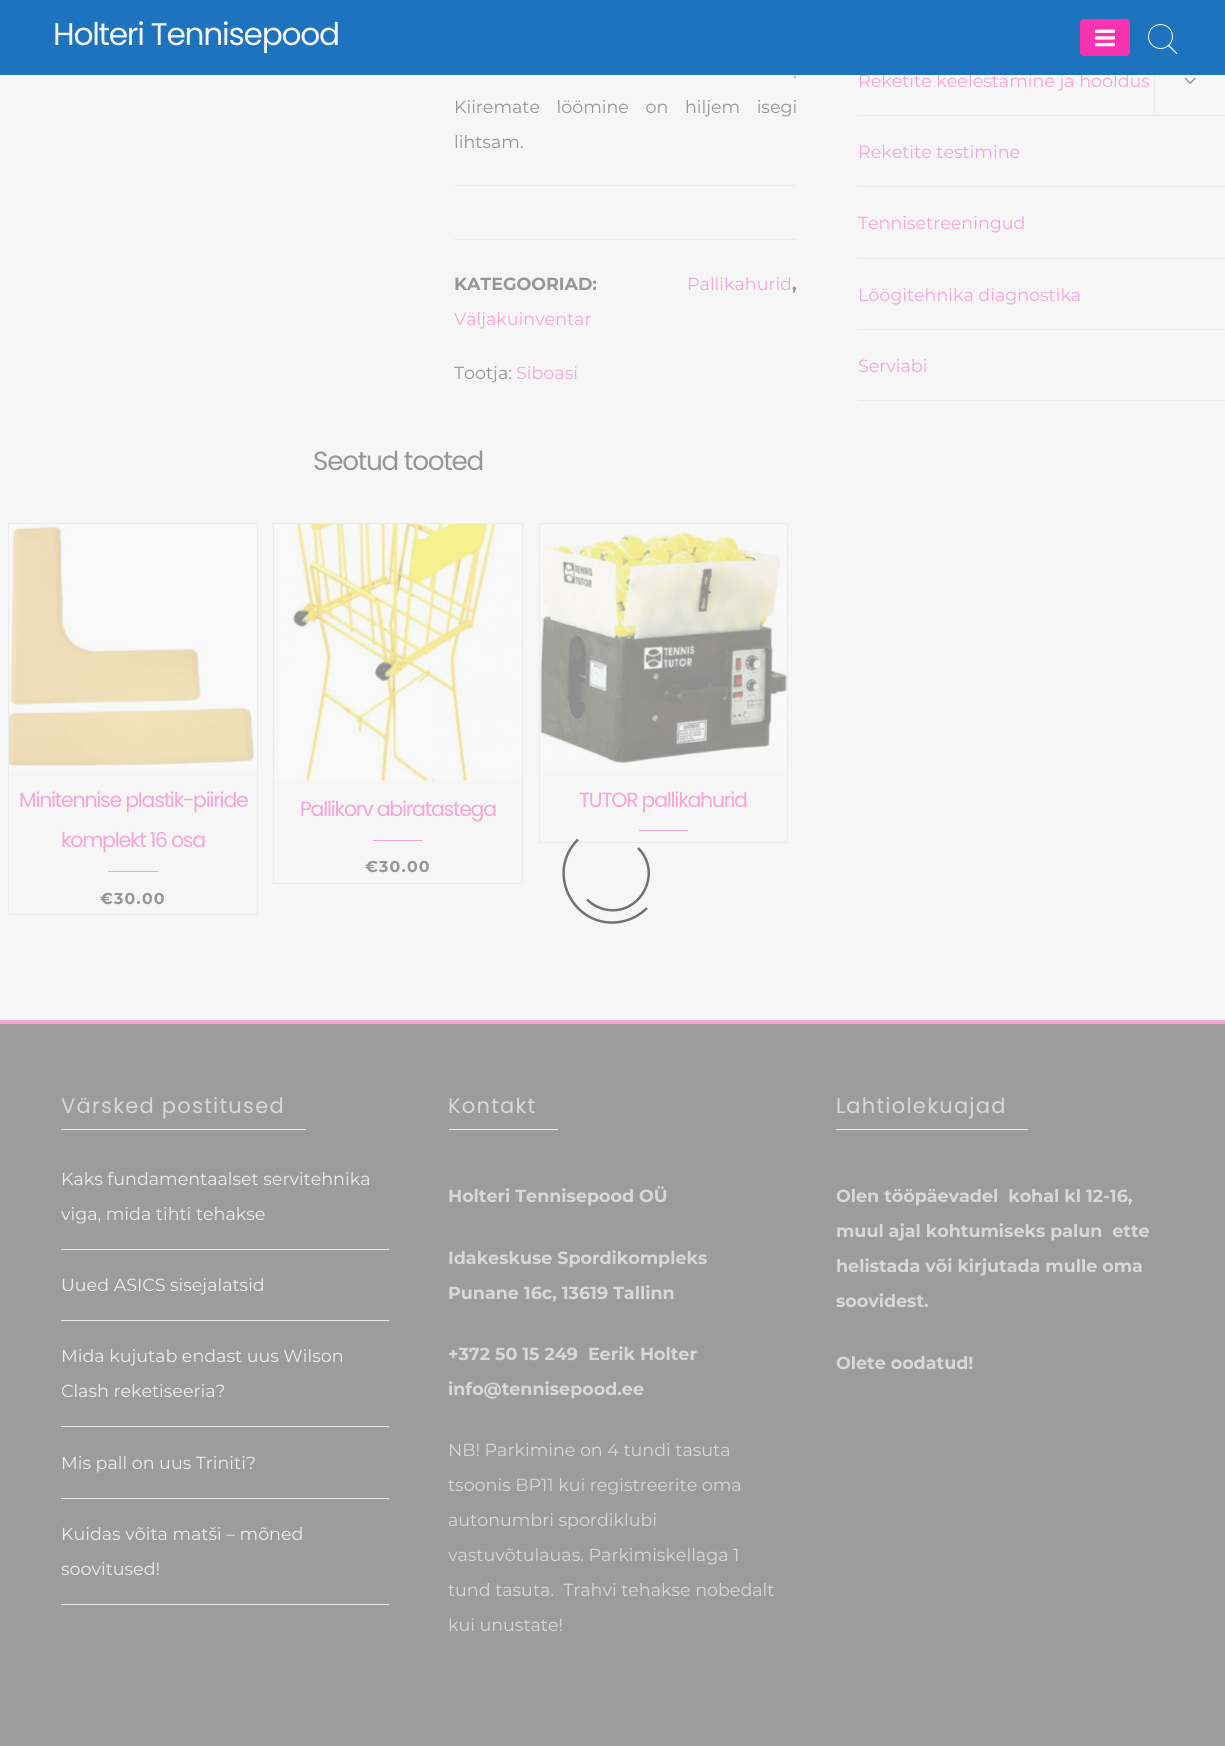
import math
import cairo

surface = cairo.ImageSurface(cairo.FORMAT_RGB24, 1225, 1746)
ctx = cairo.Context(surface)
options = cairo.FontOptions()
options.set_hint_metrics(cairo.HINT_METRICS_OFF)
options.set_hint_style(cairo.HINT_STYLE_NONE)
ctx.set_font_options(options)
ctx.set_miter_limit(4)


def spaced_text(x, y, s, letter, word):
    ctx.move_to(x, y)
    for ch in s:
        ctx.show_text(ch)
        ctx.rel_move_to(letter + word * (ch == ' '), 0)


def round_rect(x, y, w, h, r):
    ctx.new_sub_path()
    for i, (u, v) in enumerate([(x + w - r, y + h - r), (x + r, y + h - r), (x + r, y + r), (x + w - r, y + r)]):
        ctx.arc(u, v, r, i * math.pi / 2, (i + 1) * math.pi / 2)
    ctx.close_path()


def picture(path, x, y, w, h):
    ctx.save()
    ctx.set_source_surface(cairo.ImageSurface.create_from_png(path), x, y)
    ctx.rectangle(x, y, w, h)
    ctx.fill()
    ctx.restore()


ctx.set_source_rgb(0.961, 0.961, 0.961)
ctx.paint()
ctx.select_font_face("Montserrat")
ctx.set_font_size(17.5)
ctx.set_source_rgb(0.969, 0.643, 0.847)
ctx.move_to(858, 87)
ctx.show_text("Reketite keelestamine ja hooldus")
ctx.set_source_rgb(0.118, 0.451, 0.745)
ctx.rectangle(0, 0, 1225, 75)
ctx.fill()
ctx.select_font_face("Poppins")
ctx.set_font_size(31.25)
ctx.set_source_rgb(0.961, 0.961, 0.961)
spaced_text(53, 45, "Holteri Tennisepood", -1.25, 0)
ctx.set_source_rgb(0.976, 0.2, 0.686)
round_rect(1080, 19, 50, 37, 4)
ctx.fill()
picture("img1.png", 1095, 29, 20, 18)
ctx.arc(1160.5, 36.5, 12, 0, 2 * math.pi)
ctx.set_source_rgb(0.961, 0.961, 0.961)
ctx.set_line_width(1)
ctx.stroke()
ctx.new_path()
ctx.move_to(1168.5, 44.5)
ctx.line_to(1177.5, 53.5)
ctx.line_to(1176.5, 54)
ctx.line_to(1167.5, 45.5)
ctx.close_path()
ctx.fill()
ctx.select_font_face("Montserrat")
ctx.set_font_size(17.5)
ctx.set_source_rgb(0.588, 0.588, 0.588)
spaced_text(793, 78, ".", 0, 7)
spaced_text(454, 113, "Kiiremate löömine on hiljem isegi", 0, 12)
ctx.move_to(454, 148)
ctx.show_text("lihtsam.")
ctx.set_source_rgb(0.925, 0.925, 0.925)
ctx.rectangle(454, 185, 342, 1)
ctx.fill()
ctx.rectangle(454, 239, 342, 1)
ctx.fill()
ctx.select_font_face("Montserrat", cairo.FONT_SLANT_NORMAL, cairo.FONT_WEIGHT_BOLD)
ctx.set_source_rgb(0.588, 0.588, 0.588)
ctx.move_to(454, 290)
ctx.show_text("KATEGOORIAD:")
ctx.select_font_face("Montserrat")
ctx.set_source_rgb(0.969, 0.643, 0.847)
ctx.move_to(687, 290)
ctx.show_text("Pallikahurid")
ctx.select_font_face("Montserrat", cairo.FONT_SLANT_NORMAL, cairo.FONT_WEIGHT_BOLD)
ctx.set_source_rgb(0.588, 0.588, 0.588)
ctx.move_to(792, 290)
ctx.show_text(",")
ctx.select_font_face("Montserrat")
ctx.set_source_rgb(0.969, 0.643, 0.847)
ctx.move_to(454, 325)
ctx.show_text("Väljakuinventar")
ctx.set_source_rgb(0.588, 0.588, 0.588)
ctx.move_to(454, 379)
ctx.show_text("Tootja:")
ctx.set_source_rgb(0.969, 0.643, 0.847)
ctx.move_to(516, 379)
ctx.show_text("Siboasi")
ctx.select_font_face("Poppins")
ctx.set_font_size(26.25)
ctx.set_source_rgb(0.588, 0.588, 0.588)
spaced_text(313, 470, "Seotud tooted", -1.25, 0)
ctx.rectangle(8.5, 523.5, 249, 391)
ctx.set_source_rgb(0.925, 0.925, 0.925)
ctx.stroke()
picture("img2.png", 9, 524, 248, 247)
ctx.set_font_size(20.5)
ctx.set_source_rgb(0.969, 0.643, 0.847)
spaced_text(19, 807, "Minitennise plastik-piiride", -1.25, 0)
spaced_text(61, 847, "komplekt 16 osa", -1.25, 0)
ctx.rectangle(108, 871, 50, 1)
ctx.fill()
ctx.select_font_face("Montserrat", cairo.FONT_SLANT_NORMAL, cairo.FONT_WEIGHT_BOLD)
ctx.set_font_size(15.75)
ctx.set_source_rgb(0.588, 0.588, 0.588)
spaced_text(100, 904, "€30.00", 1.25, 0)
ctx.rectangle(273.5, 523.5, 249, 360)
ctx.set_source_rgb(0.925, 0.925, 0.925)
ctx.stroke()
picture("img3.png", 274, 524, 248, 257)
ctx.select_font_face("Poppins")
ctx.set_font_size(20.5)
ctx.set_source_rgb(0.969, 0.643, 0.847)
spaced_text(300, 816, "Pallikorv abiratastega", -1.25, 0)
ctx.rectangle(373, 840, 50, 1)
ctx.fill()
ctx.select_font_face("Montserrat", cairo.FONT_SLANT_NORMAL, cairo.FONT_WEIGHT_BOLD)
ctx.set_font_size(15.75)
ctx.set_source_rgb(0.588, 0.588, 0.588)
spaced_text(365, 872, "€30.00", 1.25, 0)
ctx.rectangle(539.5, 523.5, 248, 319)
ctx.set_source_rgb(0.925, 0.925, 0.925)
ctx.stroke()
picture("img4.png", 540, 524, 247, 247)
ctx.select_font_face("Poppins")
ctx.set_font_size(20.5)
ctx.set_source_rgb(0.969, 0.643, 0.847)
spaced_text(579, 807, "TUTOR pallikahurid", -1.25, 0)
ctx.rectangle(639, 830, 49, 1)
ctx.fill()
ctx.set_source_rgb(0.925, 0.925, 0.925)
ctx.rectangle(858, 115, 367, 1)
ctx.fill()
ctx.rectangle(1154, 75, 1, 41)
ctx.fill()
picture("img5.png", 1184, 77, 12, 8)
ctx.rectangle(858, 186, 367, 1)
ctx.fill()
ctx.select_font_face("Montserrat")
ctx.set_font_size(17.5)
ctx.set_source_rgb(0.969, 0.643, 0.847)
ctx.move_to(858, 158)
ctx.show_text("Reketite testimine")
ctx.set_source_rgb(0.925, 0.925, 0.925)
ctx.rectangle(858, 258, 367, 1)
ctx.fill()
ctx.set_source_rgb(0.969, 0.643, 0.847)
ctx.move_to(858, 229)
ctx.show_text("Tennisetreeningud")
ctx.set_source_rgb(0.925, 0.925, 0.925)
ctx.rectangle(858, 329, 367, 1)
ctx.fill()
ctx.set_source_rgb(0.969, 0.643, 0.847)
ctx.move_to(858, 301)
ctx.show_text("Löögitehnika diagnostika")
ctx.set_source_rgb(0.925, 0.925, 0.925)
ctx.rectangle(858, 400, 367, 1)
ctx.fill()
ctx.set_source_rgb(0.969, 0.643, 0.847)
ctx.move_to(858, 372)
ctx.show_text("Serviabi")
ctx.set_source_rgb(0.612, 0.612, 0.612)
ctx.rectangle(0, 1024, 1225, 722)
ctx.fill()
ctx.set_source_rgb(0.969, 0.643, 0.847)
ctx.rectangle(0, 1020, 1225, 4)
ctx.fill()
ctx.set_source_rgb(0.933, 0.929, 0.929)
ctx.rectangle(61, 1129, 245, 1)
ctx.fill()
ctx.select_font_face("Poppins")
ctx.set_font_size(21)
ctx.set_source_rgb(0.847, 0.847, 0.847)
spaced_text(61, 1113, "Värsked postitused", 1.25, 0)
ctx.set_source_rgb(0.925, 0.925, 0.925)
ctx.rectangle(61, 1249, 328, 1)
ctx.fill()
ctx.select_font_face("Montserrat")
ctx.set_font_size(17.5)
ctx.set_source_rgb(0.933, 0.929, 0.929)
ctx.move_to(61, 1185)
ctx.show_text("Kaks fundamentaalset servitehnika")
ctx.move_to(61, 1220)
ctx.show_text("viga, mida tihti tehakse")
ctx.set_source_rgb(0.925, 0.925, 0.925)
ctx.rectangle(61, 1320, 328, 1)
ctx.fill()
ctx.set_source_rgb(0.933, 0.929, 0.929)
ctx.move_to(61, 1291)
ctx.show_text("Uued ASICS sisejalatsid")
ctx.set_source_rgb(0.925, 0.925, 0.925)
ctx.rectangle(61, 1426, 328, 1)
ctx.fill()
ctx.set_source_rgb(0.933, 0.929, 0.929)
ctx.move_to(61, 1362)
ctx.show_text("Mida kujutab endast uus Wilson")
ctx.move_to(61, 1397)
ctx.show_text("Clash reketiseeria?")
ctx.set_source_rgb(0.925, 0.925, 0.925)
ctx.rectangle(61, 1498, 328, 1)
ctx.fill()
ctx.set_source_rgb(0.933, 0.929, 0.929)
ctx.move_to(61, 1469)
ctx.show_text("Mis pall on uus Triniti?")
ctx.set_source_rgb(0.925, 0.925, 0.925)
ctx.rectangle(61, 1604, 328, 1)
ctx.fill()
ctx.set_source_rgb(0.933, 0.929, 0.929)
ctx.move_to(61, 1540)
ctx.show_text("Kuidas võita matši – mõned")
ctx.move_to(61, 1575)
ctx.show_text("soovitused!")
ctx.rectangle(449, 1129, 109, 1)
ctx.fill()
ctx.select_font_face("Poppins")
ctx.set_font_size(21)
ctx.set_source_rgb(0.847, 0.847, 0.847)
spaced_text(448, 1113, "Kontakt", 1.25, 0)
ctx.select_font_face("Montserrat", cairo.FONT_SLANT_NORMAL, cairo.FONT_WEIGHT_BOLD)
ctx.set_font_size(17.5)
ctx.move_to(448, 1202)
ctx.show_text("Holteri Tennisepood OÜ")
ctx.move_to(448, 1264)
ctx.show_text("Idakeskuse Spordikompleks")
ctx.move_to(448, 1299)
ctx.show_text("Punane 16c, 13619 Tallinn")
ctx.move_to(448, 1360)
ctx.show_text("+372 50 15 249  Eerik Holter")
ctx.move_to(448, 1395)
ctx.show_text("info@tennisepood.ee")
ctx.select_font_face("Montserrat")
ctx.move_to(448, 1456)
ctx.show_text("NB! Parkimine on 4 tundi tasuta")
ctx.move_to(448, 1491)
ctx.show_text("tsoonis BP11 kui registreerite oma")
ctx.move_to(448, 1526)
ctx.show_text("autonumbri spordiklubi")
ctx.move_to(448, 1561)
ctx.show_text("vastuvõtulauas. Parkimiskellaga 1")
ctx.move_to(448, 1596)
ctx.show_text("tund tasuta.  Trahvi tehakse nobedalt")
ctx.move_to(448, 1631)
ctx.show_text("kui unustate!")
ctx.set_source_rgb(0.933, 0.929, 0.929)
ctx.rectangle(836, 1129, 192, 1)
ctx.fill()
ctx.select_font_face("Poppins")
ctx.set_font_size(21)
ctx.set_source_rgb(0.847, 0.847, 0.847)
spaced_text(836, 1113, "Lahtiolekuajad", 1.25, 0)
ctx.select_font_face("Montserrat", cairo.FONT_SLANT_NORMAL, cairo.FONT_WEIGHT_BOLD)
ctx.set_font_size(17.5)
ctx.move_to(836, 1202)
ctx.show_text("Olen tööpäevadel  kohal kl 12-16,")
ctx.move_to(836, 1237)
ctx.show_text("muul ajal kohtumiseks palun  ette")
ctx.move_to(836, 1272)
ctx.show_text("helistada või kirjutada mulle oma")
ctx.move_to(836, 1307)
ctx.show_text("soovidest.")
ctx.move_to(836, 1369)
ctx.show_text("Olete oodatud!")
ctx.new_path()
ctx.move_to(647, 908)
ctx.curve_to(640, 915, 631.5, 919.5, 622, 921.5)
ctx.curve_to(575, 931, 544, 873, 578, 839.5)
ctx.set_source_rgba(0.071, 0.071, 0.071, 0.58)
ctx.set_line_width(2.5)
ctx.stroke()
ctx.new_path()
ctx.move_to(638, 848)
ctx.curve_to(663.5, 873, 640, 916.5, 605.5, 909.5)
ctx.curve_to(598.5, 908, 592, 904.5, 587, 899.5)
ctx.set_source_rgb(0.447, 0.447, 0.447)
ctx.stroke()
surface.write_to_png("page.png")
